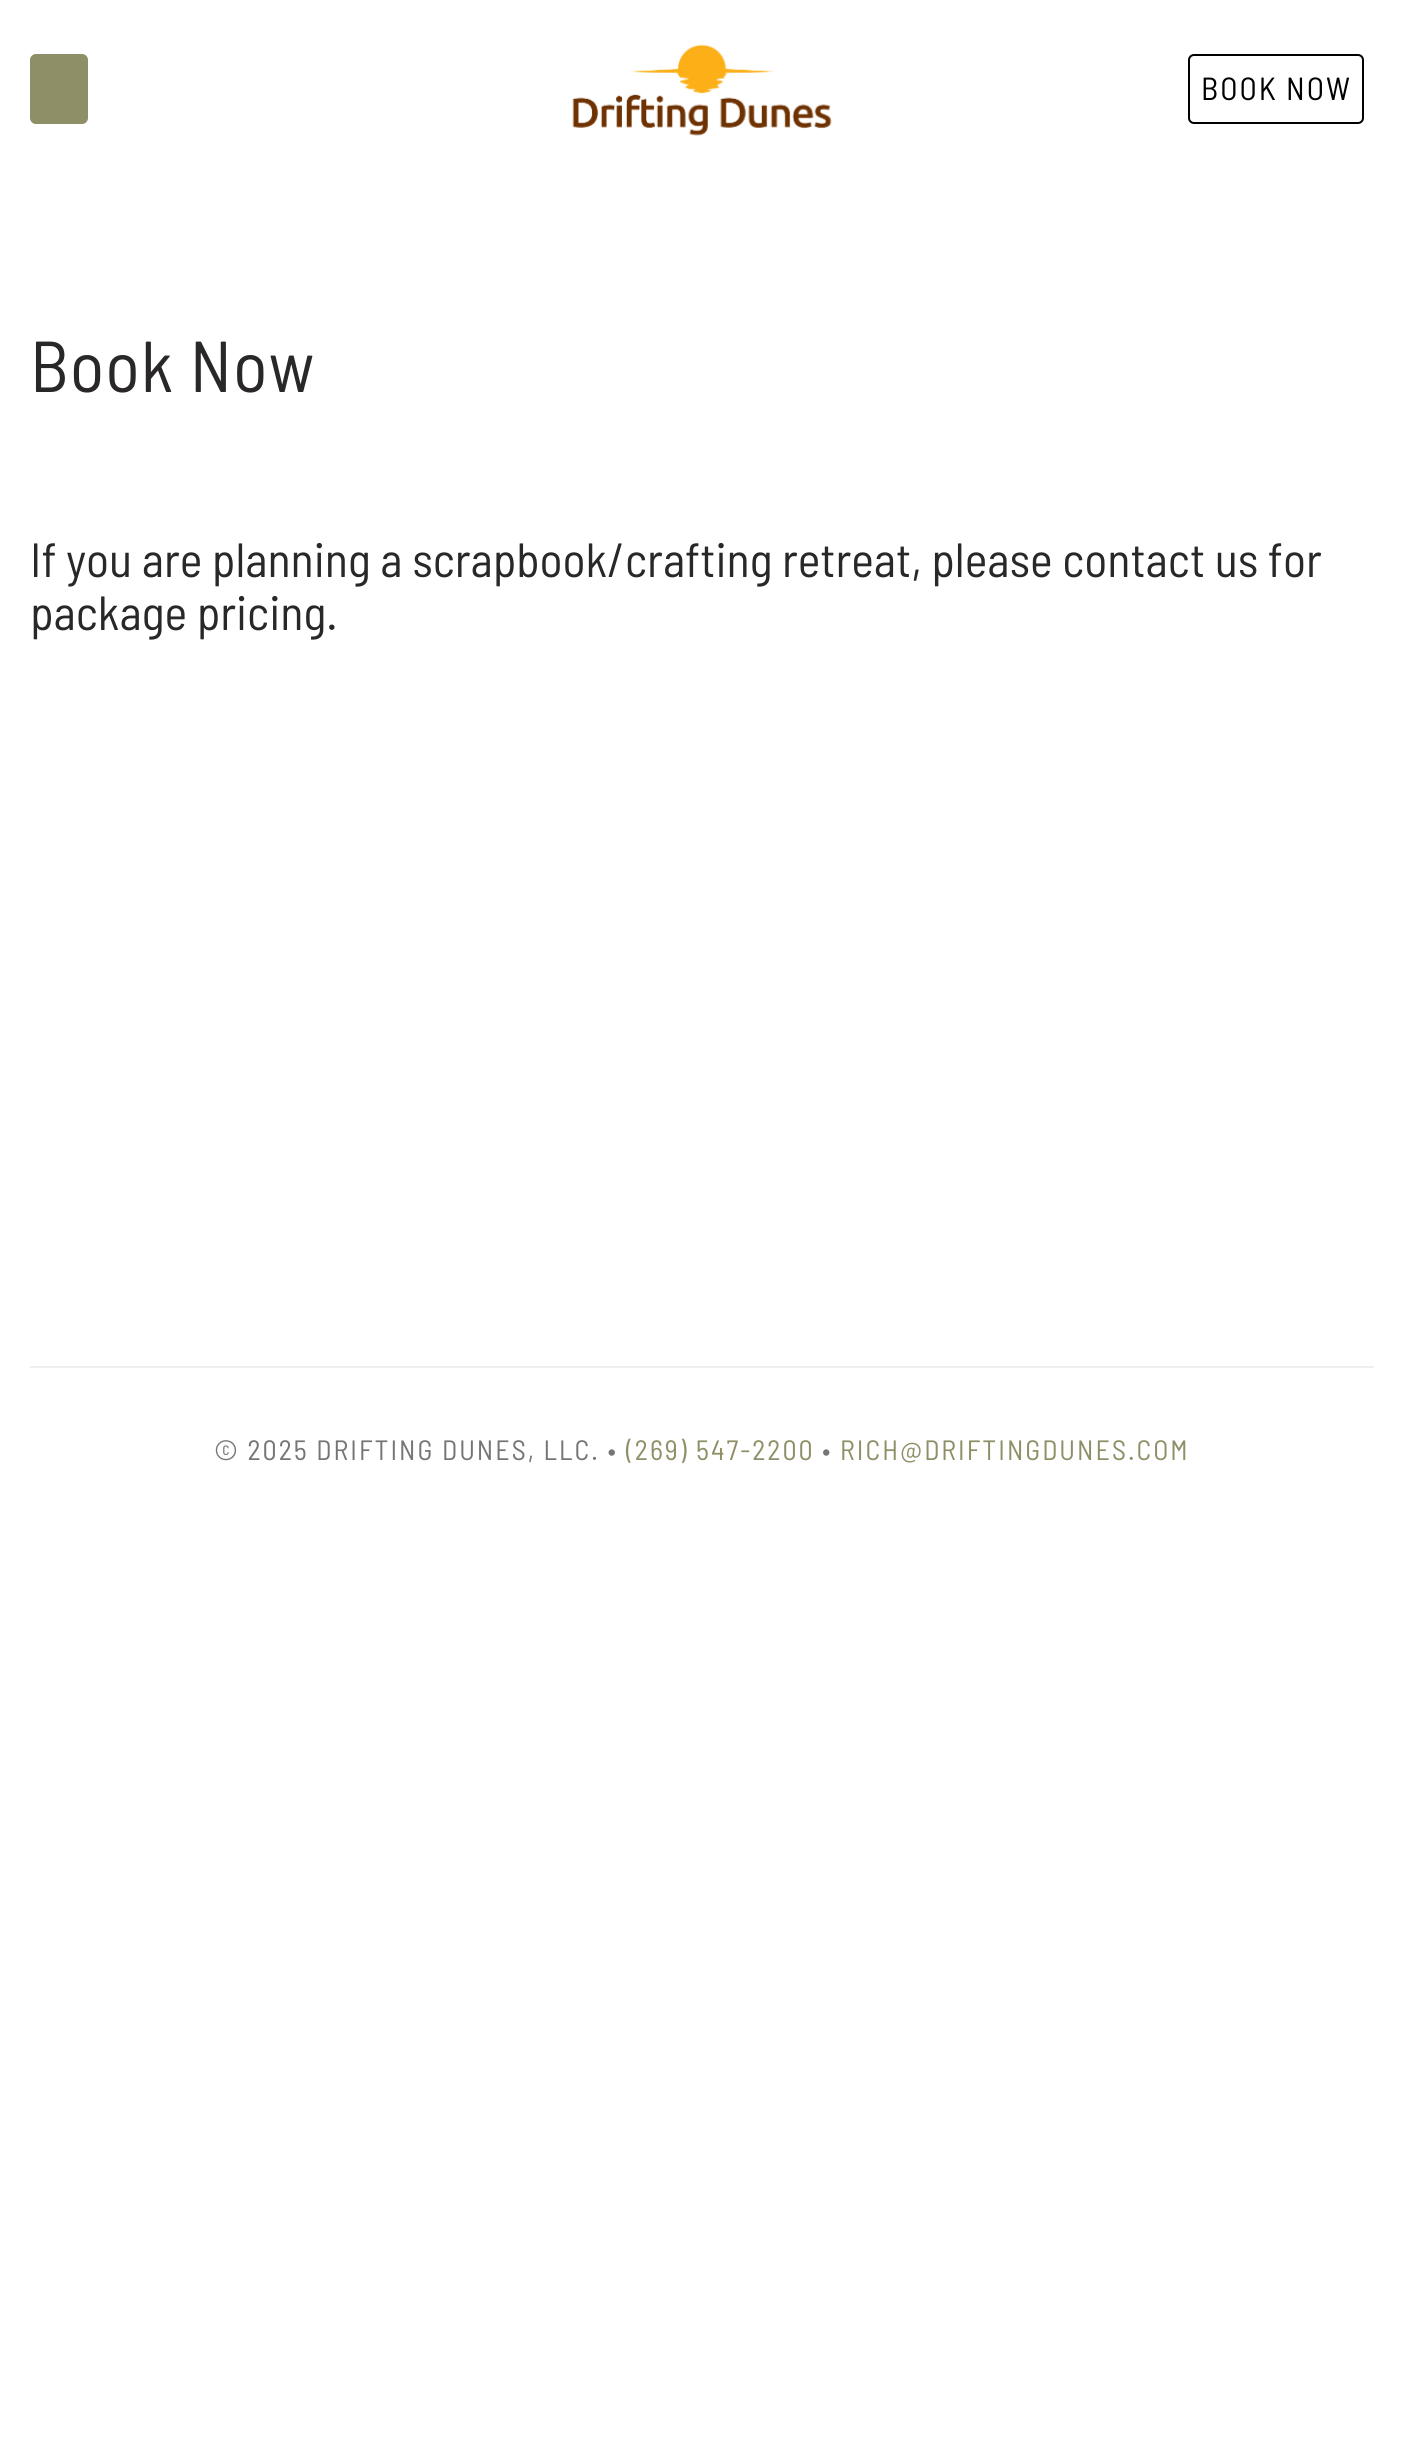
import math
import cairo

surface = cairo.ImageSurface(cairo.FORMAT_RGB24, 1404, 2442)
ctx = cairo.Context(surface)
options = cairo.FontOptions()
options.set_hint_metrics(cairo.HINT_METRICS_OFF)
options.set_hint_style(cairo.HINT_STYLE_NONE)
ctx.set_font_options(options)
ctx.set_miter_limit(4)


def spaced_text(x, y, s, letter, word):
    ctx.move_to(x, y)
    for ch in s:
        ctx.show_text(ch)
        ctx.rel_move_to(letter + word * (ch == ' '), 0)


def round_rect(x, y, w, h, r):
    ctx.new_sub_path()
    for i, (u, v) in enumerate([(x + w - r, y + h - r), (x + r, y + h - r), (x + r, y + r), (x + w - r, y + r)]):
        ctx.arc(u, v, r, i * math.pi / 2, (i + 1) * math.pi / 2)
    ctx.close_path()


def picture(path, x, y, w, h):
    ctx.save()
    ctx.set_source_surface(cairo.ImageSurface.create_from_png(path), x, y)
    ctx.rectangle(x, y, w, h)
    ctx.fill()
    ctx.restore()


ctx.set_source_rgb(1, 1, 1)
ctx.paint()
ctx.set_source_rgb(0.561, 0.561, 0.404)
round_rect(31, 55, 56, 68, 5)
ctx.fill_preserve()
ctx.stroke()
picture("img1.png", 572, 44, 260, 92)
round_rect(1189, 55, 174, 68, 5)
ctx.set_source_rgb(0, 0, 0)
ctx.stroke()
ctx.select_font_face("Barlow Semi Condensed")
ctx.set_font_size(32)
spaced_text(1201, 100, "BOOK NOW", 2, 0)
ctx.set_font_size(72)
ctx.set_source_rgb(0.161, 0.153, 0.153)
spaced_text(30, 392, "Book Now", 1, 0)
ctx.set_font_size(48)
ctx.move_to(30, 577)
ctx.show_text("If you are planning a scrapbook/crafting retreat, please contact us for")
ctx.move_to(30, 630)
ctx.show_text("package pricing.")
ctx.set_source_rgb(0.933, 0.933, 0.933)
ctx.rectangle(30, 1366, 1344, 2)
ctx.fill()
ctx.set_font_size(28)
ctx.set_source_rgb(0.459, 0.459, 0.459)
spaced_text(214, 1460, "© 2025 DRIFTING DUNES, LLC. •", 2, 0)
ctx.set_source_rgb(0.561, 0.561, 0.404)
spaced_text(626, 1460, "(269) 547-2200", 2, 0)
ctx.set_source_rgb(0.459, 0.459, 0.459)
spaced_text(822, 1460, "•", 2, 0)
ctx.set_source_rgb(0.561, 0.561, 0.404)
spaced_text(840, 1460, "RICH@DRIFTINGDUNES.COM", 2, 0)
surface.write_to_png("page.png")
